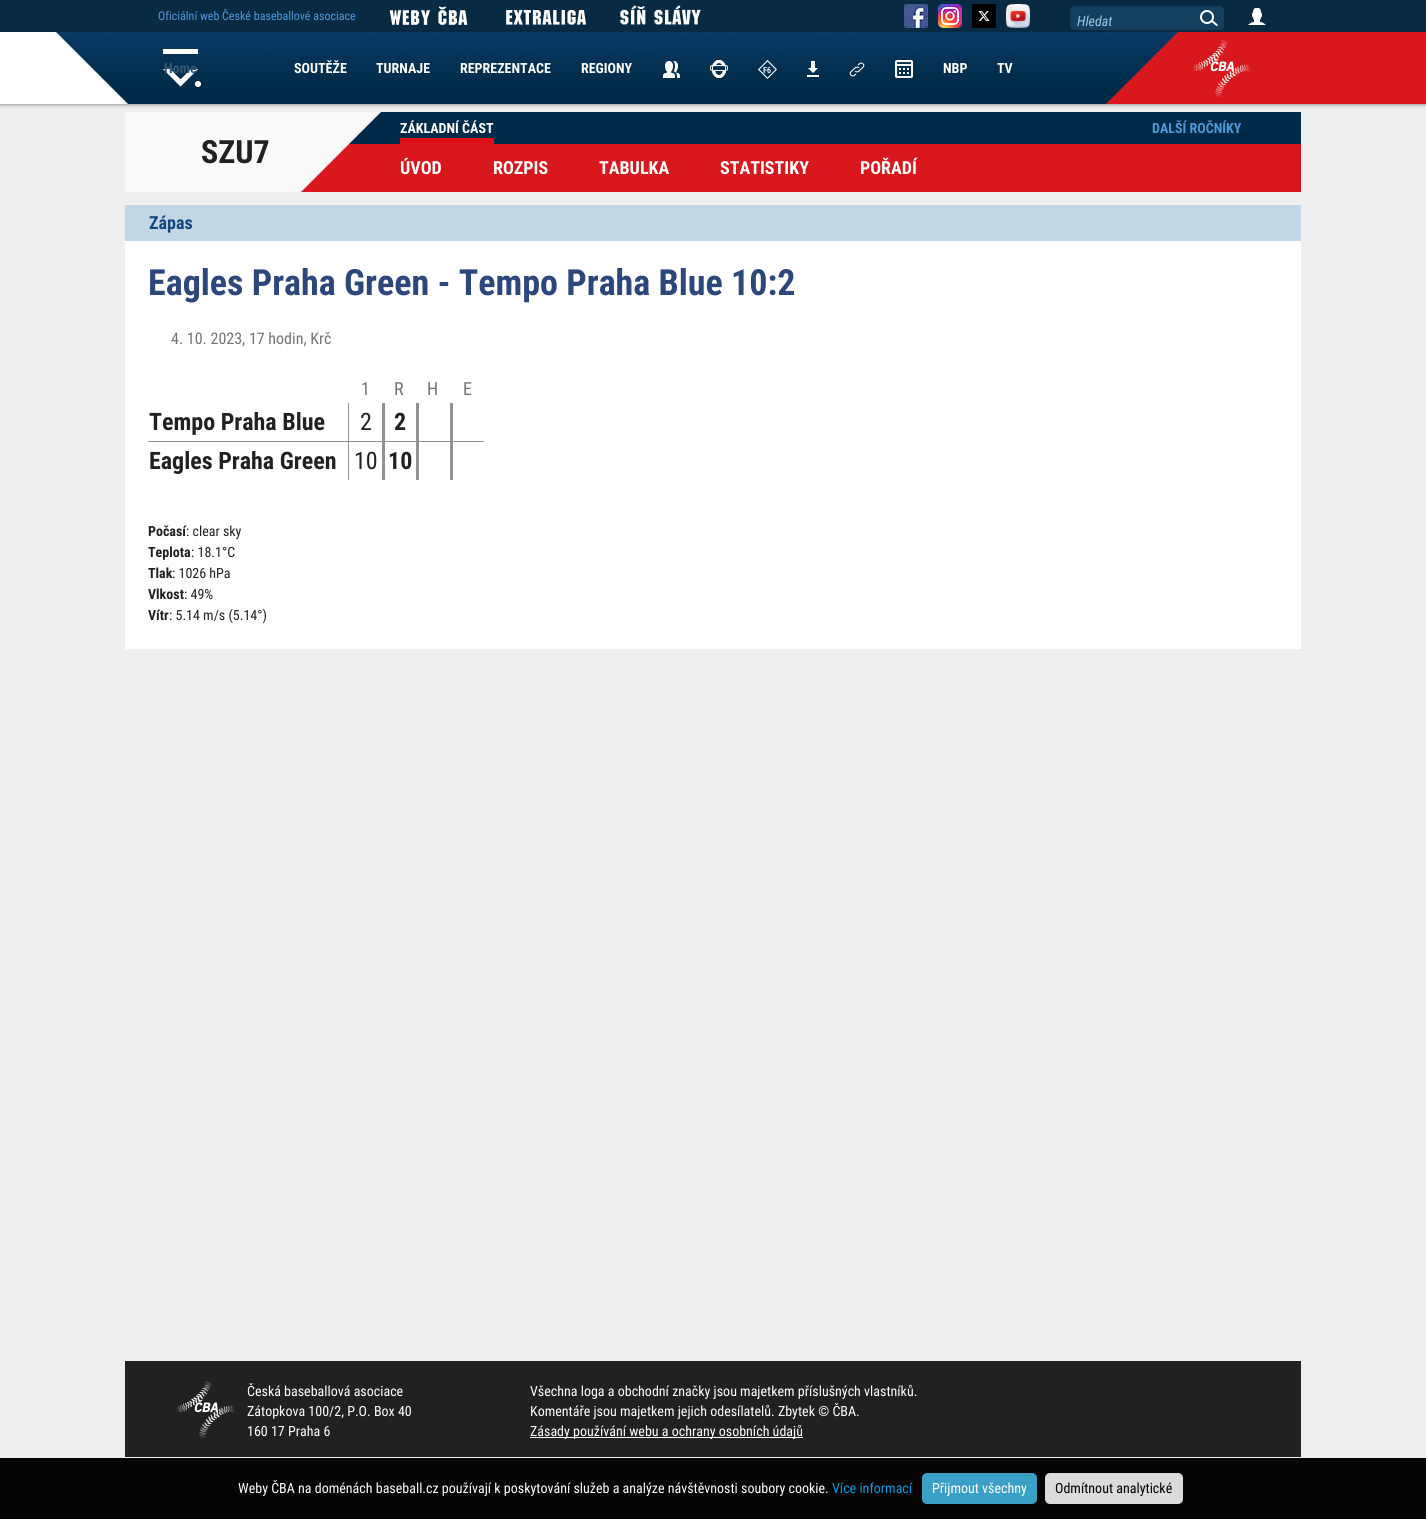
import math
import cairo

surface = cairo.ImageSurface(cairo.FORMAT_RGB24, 1426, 1519)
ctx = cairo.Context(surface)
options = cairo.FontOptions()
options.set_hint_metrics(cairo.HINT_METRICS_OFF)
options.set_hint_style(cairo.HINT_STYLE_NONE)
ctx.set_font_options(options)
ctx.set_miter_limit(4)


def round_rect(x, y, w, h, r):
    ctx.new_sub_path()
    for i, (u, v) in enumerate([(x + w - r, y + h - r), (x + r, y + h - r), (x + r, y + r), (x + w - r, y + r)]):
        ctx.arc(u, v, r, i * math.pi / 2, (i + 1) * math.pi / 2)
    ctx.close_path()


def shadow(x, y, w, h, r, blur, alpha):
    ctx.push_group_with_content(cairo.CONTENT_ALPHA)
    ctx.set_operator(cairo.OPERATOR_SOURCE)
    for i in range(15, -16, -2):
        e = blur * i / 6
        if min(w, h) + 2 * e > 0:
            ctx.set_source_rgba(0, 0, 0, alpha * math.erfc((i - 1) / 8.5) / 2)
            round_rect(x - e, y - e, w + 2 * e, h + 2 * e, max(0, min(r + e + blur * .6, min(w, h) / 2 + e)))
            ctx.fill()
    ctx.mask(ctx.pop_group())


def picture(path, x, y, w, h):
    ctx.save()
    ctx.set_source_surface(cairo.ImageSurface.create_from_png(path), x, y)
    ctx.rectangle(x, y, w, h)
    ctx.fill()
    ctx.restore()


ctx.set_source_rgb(0.937, 0.937, 0.937)
ctx.paint()
ctx.set_source_rgb(0.98, 0.98, 0.98)
ctx.rectangle(125, 112, 200, 80)
ctx.fill()
picture("img17.png", 603, 112, 698, 80)
picture("img18.png", 325, 112, 278, 80)
ctx.set_source_rgb(0.114, 0.114, 0.106)
shadow(0, 32, 1426, 72, 0, 2.5, 0.63)
ctx.set_source_rgb(0.035, 0.165, 0.263)
ctx.rectangle(0, 0, 1426, 32)
ctx.fill()
ctx.select_font_face("Roboto Condensed")
ctx.set_font_size(12)
ctx.set_source_rgb(0.306, 0.596, 0.859)
ctx.move_to(158, 20)
ctx.show_text("Oficiální web České baseballové asociace")
picture("img1.png", 389, 6, 79, 19)
picture("img2.png", 506, 10, 80, 15)
picture("img3.png", 620, 5, 81, 20)
picture("img4.png", 904, 4, 24, 24)
picture("img5.png", 938, 4, 24, 24)
picture("img6.png", 972, 4, 24, 24)
picture("img7.png", 1006, 4, 24, 24)
picture("img8.png", 1070, 6, 154, 24)
ctx.select_font_face("Roboto Condensed", cairo.FONT_SLANT_ITALIC)
ctx.set_font_size(14)
ctx.set_source_rgb(0.62, 0.78, 0.902)
ctx.move_to(1077, 26)
ctx.show_text("Hledat")
picture("img9.png", 1248, 8, 18, 17)
ctx.set_source_rgb(1, 1, 1)
ctx.rectangle(0, 32, 56, 72)
ctx.fill()
picture("img10.png", 56, 32, 1194, 72)
ctx.set_source_rgb(0.847, 0.094, 0.11)
ctx.rectangle(1250, 32, 176, 72)
ctx.fill()
ctx.select_font_face("Roboto Condensed", cairo.FONT_SLANT_NORMAL, cairo.FONT_WEIGHT_BOLD)
ctx.set_source_rgb(0.2, 0.341, 0.447)
ctx.move_to(164, 73)
ctx.show_text("Home")
ctx.set_source_rgb(1, 1, 1)
ctx.move_to(294, 73)
ctx.show_text("SOUTĚŽE")
ctx.move_to(376, 73)
ctx.show_text("TURNAJE")
ctx.move_to(460, 73)
ctx.show_text("REPREZENTACE")
ctx.move_to(581, 73)
ctx.show_text("REGIONY")
picture("img11.png", 663, 61, 17, 17)
picture("img12.png", 710, 60, 18, 18)
picture("img13.png", 758, 60, 19, 19)
picture("img14.png", 807, 61, 12, 16)
picture("img15.png", 849, 62, 16, 15)
picture("img16.png", 895, 60, 18, 18)
ctx.move_to(943, 73)
ctx.show_text("NBP")
ctx.move_to(997, 73)
ctx.show_text("TV")
ctx.set_source_rgb(0.851, 0.067, 0.086)
ctx.rectangle(400, 138, 94, 6)
ctx.fill()
ctx.set_source_rgb(1, 1, 1)
ctx.move_to(400, 133)
ctx.show_text("ZÁKLADNÍ ČÁST")
ctx.set_font_size(18)
ctx.move_to(400, 174)
ctx.show_text("ÚVOD")
ctx.move_to(493, 174)
ctx.show_text("ROZPIS")
ctx.move_to(599, 174)
ctx.show_text("TABULKA")
ctx.move_to(720, 174)
ctx.show_text("STATISTIKY")
ctx.move_to(860, 174)
ctx.show_text("POŘADÍ")
ctx.set_font_size(14)
ctx.set_source_rgb(0.306, 0.596, 0.859)
ctx.move_to(1152, 133)
ctx.show_text("DALŠÍ ROČNÍKY")
picture("img19.png", 301, 168, 24, 24)
ctx.set_font_size(32)
ctx.set_source_rgb(0.129, 0.129, 0.129)
ctx.move_to(201, 163)
ctx.show_text("SZU7")
ctx.set_source_rgb(1, 1, 1)
ctx.rectangle(125, 241, 1176, 408)
ctx.fill()
ctx.set_source_rgb(0.761, 0.839, 0.89)
ctx.rectangle(125, 205, 1176, 36)
ctx.fill()
ctx.set_font_size(18)
ctx.set_source_rgb(0.075, 0.275, 0.502)
ctx.move_to(149, 229)
ctx.show_text("Zápas")
ctx.set_font_size(36)
ctx.set_source_rgb(0.173, 0.278, 0.486)
ctx.move_to(148, 295)
ctx.show_text("Eagles Praha Green - Tempo Praha Blue 10:2")
ctx.select_font_face("Roboto Condensed")
ctx.set_font_size(16)
ctx.set_source_rgb(0.455, 0.455, 0.455)
ctx.move_to(171, 344)
ctx.show_text("4. 10. 2023, 17 hodin, Krč")
ctx.set_font_size(18)
ctx.move_to(361, 395)
ctx.show_text("1")
ctx.move_to(394, 395)
ctx.show_text("R")
ctx.move_to(427, 395)
ctx.show_text("H")
ctx.move_to(463, 395)
ctx.show_text("E")
ctx.set_source_rgb(0.573, 0.573, 0.573)
ctx.rectangle(148, 441, 336, 1)
ctx.fill()
ctx.select_font_face("Roboto Condensed", cairo.FONT_SLANT_NORMAL, cairo.FONT_WEIGHT_BOLD)
ctx.set_font_size(24)
ctx.set_source_rgb(0.129, 0.129, 0.129)
ctx.move_to(149, 430)
ctx.show_text("Tempo Praha Blue")
ctx.set_source_rgb(0.573, 0.573, 0.573)
ctx.rectangle(348, 403, 1, 77)
ctx.fill()
ctx.select_font_face("Roboto Condensed")
ctx.set_source_rgb(0.129, 0.129, 0.129)
ctx.move_to(360, 430)
ctx.show_text("2")
ctx.set_source_rgb(0.573, 0.573, 0.573)
ctx.rectangle(382, 403, 3, 77)
ctx.fill()
ctx.select_font_face("Roboto Condensed", cairo.FONT_SLANT_NORMAL, cairo.FONT_WEIGHT_BOLD)
ctx.set_source_rgb(0.129, 0.129, 0.129)
ctx.move_to(394, 430)
ctx.show_text("2")
ctx.set_source_rgb(0.573, 0.573, 0.573)
ctx.rectangle(416, 403, 3, 77)
ctx.fill()
ctx.rectangle(450, 403, 3, 77)
ctx.fill()
ctx.set_source_rgb(0.129, 0.129, 0.129)
ctx.move_to(149, 469)
ctx.show_text("Eagles Praha Green")
ctx.select_font_face("Roboto Condensed")
ctx.move_to(354, 469)
ctx.show_text("10")
ctx.select_font_face("Roboto Condensed", cairo.FONT_SLANT_NORMAL, cairo.FONT_WEIGHT_BOLD)
ctx.move_to(388, 469)
ctx.show_text("10")
ctx.set_font_size(14)
ctx.move_to(148, 536)
ctx.show_text("Počasí")
ctx.select_font_face("Roboto Condensed")
ctx.move_to(186, 536)
ctx.show_text(": clear sky")
ctx.select_font_face("Roboto Condensed", cairo.FONT_SLANT_NORMAL, cairo.FONT_WEIGHT_BOLD)
ctx.move_to(148, 557)
ctx.show_text("Teplota")
ctx.select_font_face("Roboto Condensed")
ctx.move_to(191, 557)
ctx.show_text(": 18.1°C")
ctx.select_font_face("Roboto Condensed", cairo.FONT_SLANT_NORMAL, cairo.FONT_WEIGHT_BOLD)
ctx.move_to(148, 578)
ctx.show_text("Tlak")
ctx.select_font_face("Roboto Condensed")
ctx.move_to(172, 578)
ctx.show_text(": 1026 hPa")
ctx.select_font_face("Roboto Condensed", cairo.FONT_SLANT_NORMAL, cairo.FONT_WEIGHT_BOLD)
ctx.move_to(148, 599)
ctx.show_text("Vlkost")
ctx.select_font_face("Roboto Condensed")
ctx.move_to(184, 599)
ctx.show_text(": 49%")
ctx.select_font_face("Roboto Condensed", cairo.FONT_SLANT_NORMAL, cairo.FONT_WEIGHT_BOLD)
ctx.move_to(148, 620)
ctx.show_text("Vítr")
ctx.select_font_face("Roboto Condensed")
ctx.move_to(169, 620)
ctx.show_text(": 5.14 m/s (5.14°)")
ctx.rectangle(125, 1361, 1176, 96)
ctx.fill()
picture("img20.png", 177, 1381, 57, 57)
ctx.set_source_rgb(1, 1, 1)
ctx.move_to(247, 1396)
ctx.show_text("Česká baseballová asociace")
ctx.move_to(247, 1416)
ctx.show_text("Zátopkova 100/2, P.O. Box 40")
ctx.move_to(247, 1436)
ctx.show_text("160 17 Praha 6")
ctx.move_to(530, 1396)
ctx.show_text("Všechna loga a obchodní značky jsou majetkem příslušných vlastníků.")
ctx.move_to(530, 1416)
ctx.show_text("Komentáře jsou majetkem jejich odesílatelů. Zbytek © ČBA.")
ctx.rectangle(530, 1437, 273, 1)
ctx.fill()
ctx.move_to(530, 1436)
ctx.show_text("Zásady používání webu a ochrany osobních údajů")
ctx.set_source_rgb(0.02, 0.02, 0.02)
ctx.rectangle(0, 1458, 1426, 61)
ctx.fill()
ctx.set_source_rgb(1, 1, 1)
ctx.move_to(238, 1493)
ctx.show_text("Weby ČBA na doménách baseball.cz používají k poskytování služeb a analýze návštěvnosti soubory cookie.")
ctx.set_source_rgb(0, 0.616, 0.882)
ctx.move_to(832, 1493)
ctx.show_text("Více informací")
ctx.set_source_rgb(0.231, 0.627, 0.776)
round_rect(922, 1473, 115, 31, 5)
ctx.fill()
ctx.set_source_rgb(1, 1, 1)
ctx.move_to(932, 1493)
ctx.show_text("Přijmout všechny")
ctx.set_source_rgb(0.859, 0.859, 0.859)
round_rect(1045, 1473, 138, 31, 5)
ctx.fill()
ctx.set_source_rgb(0, 0, 0)
ctx.move_to(1055, 1493)
ctx.show_text("Odmítnout analytické")
surface.write_to_png("page.png")
